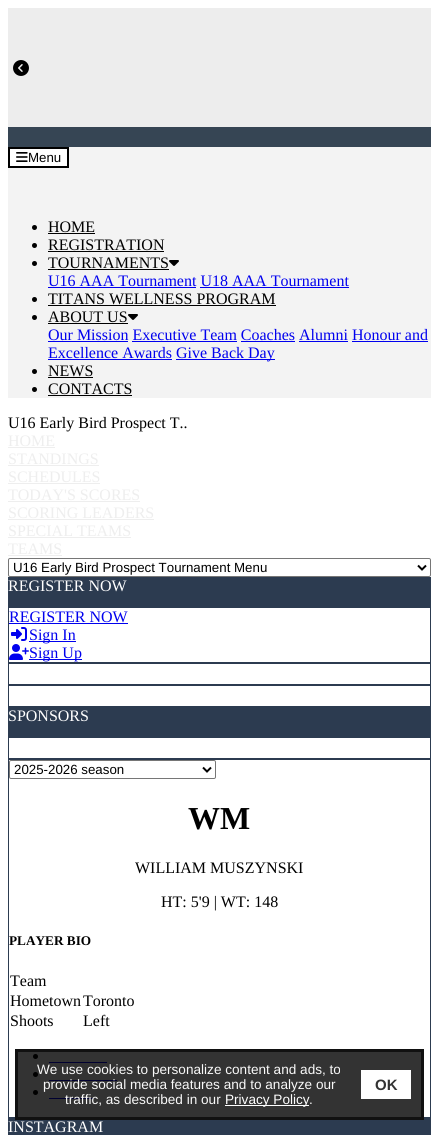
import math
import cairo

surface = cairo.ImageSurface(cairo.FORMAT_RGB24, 439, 1135)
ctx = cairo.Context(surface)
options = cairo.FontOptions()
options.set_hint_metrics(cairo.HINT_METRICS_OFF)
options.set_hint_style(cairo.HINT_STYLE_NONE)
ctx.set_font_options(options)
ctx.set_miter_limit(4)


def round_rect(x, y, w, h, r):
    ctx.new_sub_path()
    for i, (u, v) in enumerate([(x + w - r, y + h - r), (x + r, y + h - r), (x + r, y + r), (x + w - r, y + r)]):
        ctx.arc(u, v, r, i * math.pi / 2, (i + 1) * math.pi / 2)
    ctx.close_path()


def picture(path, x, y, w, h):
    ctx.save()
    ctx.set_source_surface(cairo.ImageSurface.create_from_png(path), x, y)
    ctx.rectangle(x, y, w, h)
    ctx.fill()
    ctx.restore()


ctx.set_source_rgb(1, 1, 1)
ctx.paint()
ctx.set_source_rgb(0.929, 0.929, 0.929)
ctx.rectangle(8, 8, 423, 119)
ctx.fill()
picture("img1.png", 13, 60, 16, 16)
ctx.set_source_rgb(0.212, 0.271, 0.329)
ctx.rectangle(8, 127, 423, 20)
ctx.fill()
ctx.set_source_rgb(0.953, 0.953, 0.953)
ctx.rectangle(8, 147, 423, 251)
ctx.fill()
ctx.set_source_rgb(1, 1, 1)
ctx.rectangle(9, 148, 59, 19)
ctx.fill_preserve()
ctx.set_source_rgb(0, 0, 0)
ctx.stroke()
picture("img2.png", 16, 152, 12, 10)
ctx.select_font_face("Liberation Sans")
ctx.set_font_size(13.3)
ctx.move_to(28, 162)
ctx.show_text("Menu")
ctx.new_path()
ctx.arc(34.5, 227.5, 2.5, 0, 2 * math.pi)
ctx.fill()
ctx.select_font_face("Liberation Serif")
ctx.set_font_size(16)
ctx.move_to(48, 232)
ctx.show_text("HOME")
ctx.rectangle(48, 233, 47, 1)
ctx.fill()
ctx.arc(34.5, 245.5, 2.5, 0, 2 * math.pi)
ctx.fill()
ctx.move_to(48, 250)
ctx.show_text("REGISTRATION")
ctx.rectangle(48, 251, 116, 1)
ctx.fill()
ctx.arc(34.5, 263.5, 2.5, 0, 2 * math.pi)
ctx.fill()
ctx.move_to(48, 268)
ctx.show_text("TOURNAMENTS")
ctx.rectangle(48, 269, 121, 1)
ctx.fill()
picture("img3.png", 169, 260, 10, 6)
ctx.set_source_rgb(0, 0, 0.933)
ctx.move_to(48, 286)
ctx.show_text("U16 AAA Tournament U18 AAA Tournament")
ctx.rectangle(48, 287, 148, 1)
ctx.fill()
ctx.rectangle(200, 287, 149, 1)
ctx.fill()
ctx.set_source_rgb(0, 0, 0)
ctx.arc(34.5, 299.5, 2.5, 0, 2 * math.pi)
ctx.fill()
ctx.move_to(48, 304)
ctx.show_text("TITANS WELLNESS PROGRAM")
ctx.rectangle(48, 305, 228, 1)
ctx.fill()
ctx.arc(34.5, 317.5, 2.5, 0, 2 * math.pi)
ctx.fill()
ctx.move_to(48, 322)
ctx.show_text("ABOUT US")
ctx.rectangle(48, 323, 80, 1)
ctx.fill()
picture("img3.png", 128, 314, 10, 6)
ctx.set_source_rgb(0, 0, 0.933)
ctx.move_to(48, 340)
ctx.show_text("Our Mission Executive Team Coaches Alumni Honour and")
ctx.rectangle(48, 341, 80, 1)
ctx.fill()
ctx.rectangle(132, 341, 105, 1)
ctx.fill()
ctx.rectangle(241, 341, 54, 1)
ctx.fill()
ctx.rectangle(299, 341, 49, 1)
ctx.fill()
ctx.move_to(48, 358)
ctx.show_text("Excellence Awards")
ctx.rectangle(352, 341, 76, 1)
ctx.fill()
ctx.rectangle(48, 359, 124, 1)
ctx.fill()
ctx.rectangle(176, 359, 99, 1)
ctx.fill()
ctx.move_to(176, 358)
ctx.show_text("Give Back Day")
ctx.set_source_rgb(0, 0, 0)
ctx.new_path()
ctx.arc(34.5, 371.5, 2.5, 0, 2 * math.pi)
ctx.fill()
ctx.move_to(48, 376)
ctx.show_text("NEWS")
ctx.rectangle(48, 377, 45, 1)
ctx.fill()
ctx.arc(34.5, 389.5, 2.5, 0, 2 * math.pi)
ctx.fill()
ctx.move_to(48, 394)
ctx.show_text("CONTACTS")
ctx.rectangle(48, 395, 84, 1)
ctx.fill()
ctx.move_to(8, 428)
ctx.show_text("U16 Early Bird Prospect T..")
ctx.set_source_rgb(0.933, 0.933, 0.933)
ctx.move_to(8, 446)
ctx.show_text("HOME")
ctx.rectangle(8, 447, 47, 1)
ctx.fill()
ctx.move_to(8, 464)
ctx.show_text("STANDINGS")
ctx.rectangle(8, 465, 91, 1)
ctx.fill()
ctx.move_to(8, 482)
ctx.show_text("SCHEDULES")
ctx.rectangle(8, 483, 92, 1)
ctx.fill()
ctx.move_to(8, 500)
ctx.show_text("TODAY'S SCORES")
ctx.rectangle(8, 501, 132, 1)
ctx.fill()
ctx.move_to(8, 518)
ctx.show_text("SCORING LEADERS")
ctx.rectangle(8, 519, 146, 1)
ctx.fill()
ctx.move_to(8, 536)
ctx.show_text("SPECIAL TEAMS")
ctx.rectangle(8, 537, 123, 1)
ctx.fill()
ctx.move_to(8, 554)
ctx.show_text("TEAMS")
ctx.rectangle(8, 555, 54, 1)
ctx.fill()
round_rect(8.5, 558.5, 422, 18, 1.5)
ctx.set_source_rgb(0.463, 0.463, 0.463)
ctx.set_line_width(1)
ctx.stroke()
ctx.new_path()
ctx.move_to(418, 565.5)
ctx.line_to(422, 569.5)
ctx.line_to(426, 565.5)
ctx.set_source_rgb(0, 0, 0)
ctx.set_line_width(2)
ctx.stroke()
ctx.select_font_face("Liberation Sans")
ctx.set_font_size(13.3)
ctx.move_to(13, 572)
ctx.show_text("U16 Early Bird Prospect Tournament Menu")
ctx.set_source_rgb(0.173, 0.231, 0.314)
ctx.rectangle(8, 577, 423, 30)
ctx.fill()
ctx.select_font_face("Liberation Serif")
ctx.set_font_size(16)
ctx.set_source_rgb(1, 1, 1)
ctx.move_to(8, 591)
ctx.show_text("REGISTER NOW")
ctx.rectangle(8.5, 607.5, 422, 55)
ctx.set_source_rgb(0.173, 0.231, 0.314)
ctx.set_line_width(1)
ctx.stroke()
ctx.set_source_rgb(0, 0, 0.933)
ctx.move_to(9, 622)
ctx.show_text("REGISTER NOW")
ctx.rectangle(9, 623, 119, 1)
ctx.fill()
picture("img4.png", 11, 627, 16, 14)
ctx.rectangle(29, 641, 47, 1)
ctx.fill()
ctx.move_to(29, 640)
ctx.show_text("Sign In")
picture("img5.png", 9, 644, 20, 16)
ctx.rectangle(29, 659, 53, 1)
ctx.fill()
ctx.move_to(29, 658)
ctx.show_text("Sign Up")
ctx.rectangle(8.5, 663.5, 422, 21)
ctx.set_source_rgb(0.173, 0.231, 0.314)
ctx.stroke()
ctx.rectangle(8.5, 685.5, 422, 21)
ctx.stroke()
ctx.rectangle(8, 707, 423, 30)
ctx.fill()
ctx.set_source_rgb(1, 1, 1)
ctx.move_to(8, 721)
ctx.show_text("SPONSORS")
ctx.rectangle(8.5, 737.5, 422, 21)
ctx.set_source_rgb(0.173, 0.231, 0.314)
ctx.stroke()
ctx.rectangle(8.5, 759.5, 422, 358)
ctx.stroke()
round_rect(9.5, 760.5, 206, 18, 1.5)
ctx.set_source_rgb(0.463, 0.463, 0.463)
ctx.stroke()
ctx.new_path()
ctx.move_to(203, 767.5)
ctx.line_to(207, 771.5)
ctx.line_to(211, 767.5)
ctx.set_source_rgb(0, 0, 0)
ctx.set_line_width(2)
ctx.stroke()
ctx.select_font_face("Liberation Sans")
ctx.set_font_size(13.3)
ctx.move_to(14, 774)
ctx.show_text("2025-2026 season")
ctx.select_font_face("Liberation Serif", cairo.FONT_SLANT_NORMAL, cairo.FONT_WEIGHT_BOLD)
ctx.set_font_size(32)
ctx.move_to(188, 829)
ctx.show_text("WM")
ctx.select_font_face("Liberation Serif")
ctx.set_font_size(16)
ctx.move_to(135, 873)
ctx.show_text("WILLIAM MUSZYNSKI")
ctx.move_to(161, 907)
ctx.show_text("HT: 5'9 | WT: 148")
ctx.select_font_face("Liberation Serif", cairo.FONT_SLANT_NORMAL, cairo.FONT_WEIGHT_BOLD)
ctx.set_font_size(13.25)
ctx.move_to(9, 945)
ctx.show_text("PLAYER BIO")
ctx.select_font_face("Liberation Serif")
ctx.set_font_size(16)
ctx.move_to(10, 986)
ctx.show_text("Team")
ctx.move_to(10, 1006)
ctx.show_text("Hometown")
ctx.move_to(83, 1006)
ctx.show_text("Toronto")
ctx.move_to(10, 1026)
ctx.show_text("Shoots")
ctx.move_to(83, 1026)
ctx.show_text("Left")
ctx.new_path()
ctx.arc(35.5, 1056.5, 2.5, 0, 2 * math.pi)
ctx.fill()
ctx.set_source_rgb(0, 0, 0.933)
ctx.rectangle(49, 1062, 58, 1)
ctx.fill()
ctx.set_source_rgb(0, 0, 0)
ctx.arc(35.5, 1074.5, 2.5, 0, 2 * math.pi)
ctx.fill()
ctx.set_source_rgb(0, 0, 0.933)
ctx.rectangle(49, 1080, 68, 1)
ctx.fill()
ctx.set_source_rgb(0, 0, 0)
ctx.arc(35.5, 1092.5, 2.5, 0, 2 * math.pi)
ctx.fill()
ctx.set_source_rgb(0, 0, 0.933)
ctx.rectangle(49, 1098, 44, 1)
ctx.fill()
ctx.set_source_rgb(0.173, 0.231, 0.314)
ctx.rectangle(8, 1118, 423, 17)
ctx.fill()
ctx.set_source_rgb(1, 1, 1)
ctx.move_to(8, 1132)
ctx.show_text("INSTAGRAM")
ctx.set_source_rgba(0, 0, 0, 0.8)
ctx.rectangle(16.5, 1050.5, 406, 68)
ctx.fill_preserve()
ctx.set_source_rgb(0.067, 0.067, 0.067)
ctx.set_line_width(3)
ctx.stroke()
ctx.select_font_face("Liberation Sans")
ctx.set_font_size(13.6)
ctx.set_source_rgb(0.973, 0.973, 0.973)
ctx.move_to(37, 1074)
ctx.show_text("We use cookies to personalize content and ads, to")
ctx.move_to(43, 1089)
ctx.show_text("provide social media features and to analyze our")
ctx.move_to(65, 1104)
ctx.show_text("traffic, as described in our")
ctx.set_source_rgb(1, 1, 1)
ctx.rectangle(225, 1105, 84, 1)
ctx.fill()
ctx.move_to(225, 1104)
ctx.show_text("Privacy Policy")
ctx.set_source_rgb(0.973, 0.973, 0.973)
ctx.move_to(309, 1104)
ctx.show_text(".")
ctx.set_source_rgb(1, 1, 1)
ctx.rectangle(361, 1070, 50, 29)
ctx.fill()
ctx.select_font_face("Liberation Sans", cairo.FONT_SLANT_NORMAL, cairo.FONT_WEIGHT_BOLD)
ctx.set_font_size(15)
ctx.set_source_rgb(0.2, 0.2, 0.2)
ctx.move_to(375, 1090)
ctx.show_text("OK")
surface.write_to_png("page.png")
